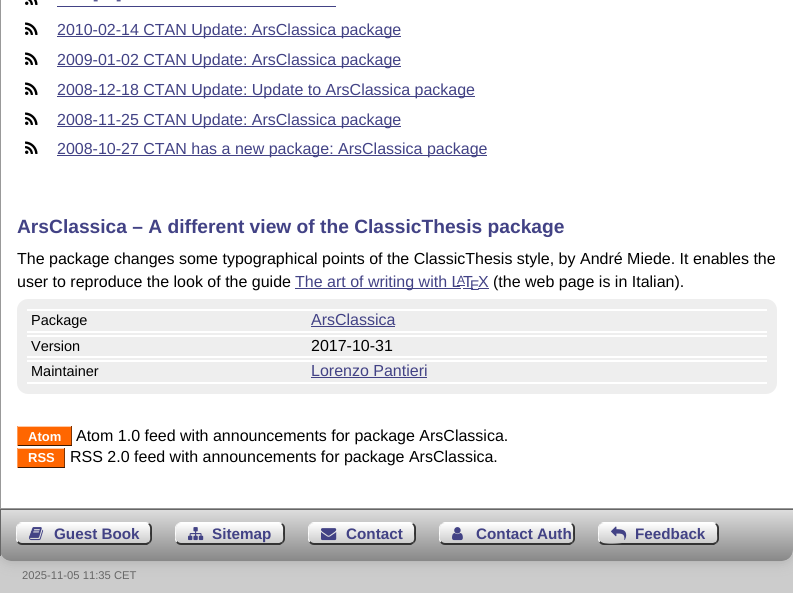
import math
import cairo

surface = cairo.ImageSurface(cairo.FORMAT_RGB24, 793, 593)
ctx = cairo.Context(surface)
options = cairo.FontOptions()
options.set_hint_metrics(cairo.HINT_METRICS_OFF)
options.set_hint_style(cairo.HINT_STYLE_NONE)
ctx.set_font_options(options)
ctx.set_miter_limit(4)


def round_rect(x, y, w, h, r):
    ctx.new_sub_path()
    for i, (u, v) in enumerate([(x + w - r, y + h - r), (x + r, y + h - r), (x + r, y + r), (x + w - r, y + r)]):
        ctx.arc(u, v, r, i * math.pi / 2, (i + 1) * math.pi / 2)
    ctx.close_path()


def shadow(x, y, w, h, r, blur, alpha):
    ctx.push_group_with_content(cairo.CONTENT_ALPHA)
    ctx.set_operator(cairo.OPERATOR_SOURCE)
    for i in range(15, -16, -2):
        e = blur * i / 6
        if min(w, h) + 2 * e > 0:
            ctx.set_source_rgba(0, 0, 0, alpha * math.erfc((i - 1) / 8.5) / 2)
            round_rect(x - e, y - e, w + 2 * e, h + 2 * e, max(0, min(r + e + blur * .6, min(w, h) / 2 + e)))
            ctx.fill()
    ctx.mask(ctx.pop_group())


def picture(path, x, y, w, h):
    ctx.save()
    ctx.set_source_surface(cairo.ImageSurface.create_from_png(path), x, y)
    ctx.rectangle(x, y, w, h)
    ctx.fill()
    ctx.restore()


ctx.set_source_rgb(0.8, 0.8, 0.8)
ctx.paint()
ctx.set_source_rgb(0.667, 0.667, 0.667)
shadow(0, -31, 793, 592, 11, 6.5, 1)
ctx.set_source_rgb(1, 1, 1)
round_rect(0, -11, 793, 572, 11)
ctx.fill()
ctx.set_source_rgb(0.6, 0.6, 0.6)
ctx.rectangle(0, 508, 793, 1)
ctx.fill()
ctx.rectangle(0, 0, 1, 509)
ctx.fill()
picture("img1.png", 25, 0, 13, 5)
ctx.select_font_face("Liberation Sans")
ctx.set_font_size(16)
ctx.set_source_rgb(0.259, 0.259, 0.522)
ctx.move_to(93, 5)
ctx.show_text("-")
ctx.rectangle(57, 6, 279, 1)
ctx.fill()
ctx.move_to(116, 5)
ctx.show_text("-")
picture("img2.png", 25, 22, 13, 13)
ctx.rectangle(57, 36, 344, 1)
ctx.fill()
ctx.move_to(57, 35)
ctx.show_text("2010-02-14 CTAN Update: ArsClassica package")
picture("img2.png", 25, 52, 13, 13)
ctx.rectangle(57, 66, 344, 1)
ctx.fill()
ctx.move_to(57, 65)
ctx.show_text("2009-01-02 CTAN Update: ArsClassica package")
picture("img2.png", 25, 82, 13, 13)
ctx.rectangle(57, 96, 418, 1)
ctx.fill()
ctx.move_to(57, 95)
ctx.show_text("2008-12-18 CTAN Update: Update to ArsClassica package")
picture("img2.png", 25, 112, 13, 13)
ctx.rectangle(57, 126, 344, 1)
ctx.fill()
ctx.move_to(57, 125)
ctx.show_text("2008-11-25 CTAN Update: ArsClassica package")
picture("img2.png", 25, 141, 13, 13)
ctx.rectangle(57, 155, 430, 1)
ctx.fill()
ctx.move_to(57, 154)
ctx.show_text("2008-10-27 CTAN has a new package: ArsClassica package")
ctx.select_font_face("Liberation Sans", cairo.FONT_SLANT_NORMAL, cairo.FONT_WEIGHT_BOLD)
ctx.set_font_size(19.2)
ctx.move_to(17, 233)
ctx.show_text("ArsClassica – A different view of the ClassicThesis package")
ctx.select_font_face("Liberation Sans")
ctx.set_font_size(16)
ctx.set_source_rgb(0, 0, 0)
ctx.move_to(17, 264)
ctx.show_text("The package changes some typographical points of the ClassicThesis style, by André Miede. It enables the")
ctx.move_to(17, 287)
ctx.show_text("user to reproduce the look of the guide")
ctx.set_source_rgb(0.259, 0.259, 0.522)
ctx.rectangle(295, 288, 166, 1)
ctx.fill()
ctx.move_to(295, 287)
ctx.show_text("The art of writing with L")
ctx.set_font_size(12)
ctx.move_to(457, 284)
ctx.show_text("A")
ctx.rectangle(457, 285, 8, 1)
ctx.fill()
ctx.set_font_size(16)
ctx.move_to(463, 287)
ctx.show_text("T")
ctx.rectangle(463, 288, 10, 1)
ctx.fill()
ctx.set_font_size(14)
ctx.move_to(470, 290)
ctx.show_text("E")
ctx.set_font_size(16)
ctx.move_to(478, 287)
ctx.show_text("X")
ctx.rectangle(478, 288, 11, 1)
ctx.fill()
ctx.set_source_rgb(0, 0, 0)
ctx.move_to(493, 287)
ctx.show_text("(the web page is in Italian).")
ctx.set_source_rgb(0.933, 0.933, 0.933)
round_rect(17, 299, 760, 95, 11)
ctx.fill()
ctx.set_source_rgb(1, 1, 1)
ctx.rectangle(27, 309, 740, 2)
ctx.fill()
ctx.rectangle(27, 331, 740, 2)
ctx.fill()
ctx.set_font_size(14.5)
ctx.set_source_rgb(0, 0, 0)
ctx.move_to(31, 325)
ctx.show_text("Package")
ctx.set_font_size(16)
ctx.set_source_rgb(0.259, 0.259, 0.522)
ctx.move_to(311, 325)
ctx.show_text("ArsClassica")
ctx.rectangle(311, 326, 84, 1)
ctx.fill()
ctx.set_source_rgb(1, 1, 1)
ctx.rectangle(27, 335, 740, 2)
ctx.fill()
ctx.rectangle(27, 356, 740, 2)
ctx.fill()
ctx.set_font_size(14.5)
ctx.set_source_rgb(0, 0, 0)
ctx.move_to(31, 351)
ctx.show_text("Version")
ctx.set_font_size(16)
ctx.move_to(311, 351)
ctx.show_text("2017-10-31")
ctx.set_source_rgb(1, 1, 1)
ctx.rectangle(27, 360, 740, 2)
ctx.fill()
ctx.rectangle(27, 382, 740, 2)
ctx.fill()
ctx.set_font_size(14.5)
ctx.set_source_rgb(0, 0, 0)
ctx.move_to(31, 376)
ctx.show_text("Maintainer")
ctx.set_font_size(16)
ctx.set_source_rgb(0.259, 0.259, 0.522)
ctx.move_to(311, 376)
ctx.show_text("Lorenzo Pantieri")
ctx.rectangle(311, 377, 116, 1)
ctx.fill()
ctx.set_source_rgb(1, 0.4, 0)
ctx.rectangle(18, 427, 53, 18)
ctx.fill()
ctx.select_font_face("Liberation Sans", cairo.FONT_SLANT_NORMAL, cairo.FONT_WEIGHT_BOLD)
ctx.set_font_size(13)
ctx.set_source_rgb(1, 1, 1)
ctx.move_to(28, 441)
ctx.show_text("Atom")
ctx.set_source_rgb(1, 0.784, 0.643)
ctx.rectangle(17, 426, 55, 1)
ctx.fill()
ctx.set_source_rgb(0.49, 0.2, 0.008)
ctx.rectangle(71, 426, 1, 20)
ctx.fill()
ctx.set_source_rgb(0.231, 0.094, 0.004)
ctx.rectangle(17, 445, 55, 1)
ctx.fill()
ctx.set_source_rgb(1, 0.604, 0.341)
ctx.rectangle(17, 426, 1, 20)
ctx.fill()
ctx.select_font_face("Liberation Sans")
ctx.set_font_size(16)
ctx.set_source_rgb(0, 0, 0)
ctx.move_to(76, 441)
ctx.show_text("Atom 1.0 feed with announcements for package ArsClassica.")
ctx.set_source_rgb(1, 0.4, 0)
ctx.rectangle(18, 449, 46, 18)
ctx.fill()
ctx.select_font_face("Liberation Sans", cairo.FONT_SLANT_NORMAL, cairo.FONT_WEIGHT_BOLD)
ctx.set_font_size(13)
ctx.set_source_rgb(1, 1, 1)
ctx.move_to(28, 462)
ctx.show_text("RSS")
ctx.set_source_rgb(1, 0.784, 0.643)
ctx.rectangle(17, 448, 48, 1)
ctx.fill()
ctx.set_source_rgb(0.49, 0.2, 0.008)
ctx.rectangle(64, 448, 1, 20)
ctx.fill()
ctx.set_source_rgb(0.231, 0.094, 0.004)
ctx.rectangle(17, 467, 48, 1)
ctx.fill()
ctx.set_source_rgb(1, 0.604, 0.341)
ctx.rectangle(17, 448, 1, 20)
ctx.fill()
ctx.select_font_face("Liberation Sans")
ctx.set_font_size(16)
ctx.set_source_rgb(0, 0, 0)
ctx.move_to(70, 462)
ctx.show_text("RSS 2.0 feed with announcements for package ArsClassica.")
gradient = cairo.LinearGradient(397, 510, 397, 561)
gradient.add_color_stop_rgba(0, 0.867, 0.867, 0.867, 1)
gradient.add_color_stop_rgba(1, 0.533, 0.533, 0.533, 1)
ctx.set_source(gradient)
ctx.new_path()
ctx.move_to(0, 510)
ctx.line_to(793, 510)
ctx.line_to(793, 550)
ctx.curve_to(793, 556, 788, 561, 782, 561)
ctx.line_to(11, 561)
ctx.curve_to(5, 561, 0, 556, 0, 550)
ctx.close_path()
ctx.fill()
ctx.set_source_rgb(0.4, 0.4, 0.4)
ctx.rectangle(0, 509, 793, 1)
ctx.fill()
ctx.rectangle(0, 509, 1, 47)
ctx.fill()
gradient = cairo.LinearGradient(84, 523, 84, 543)
gradient.add_color_stop_rgba(0, 1, 1, 1, 1)
gradient.add_color_stop_rgba(1, 0.8, 0.8, 0.8, 1)
ctx.set_source(gradient)
ctx.new_path()
ctx.move_to(22, 523)
ctx.line_to(146, 523)
ctx.curve_to(148, 523, 150, 525, 150, 528)
ctx.line_to(150, 539)
ctx.curve_to(150, 541, 148, 543, 146, 543)
ctx.line_to(22, 543)
ctx.curve_to(19, 543, 17, 541, 17, 539)
ctx.line_to(17, 528)
ctx.curve_to(17, 525, 19, 523, 22, 523)
ctx.close_path()
ctx.fill()
ctx.set_source_rgb(1, 1, 1)
ctx.new_path()
ctx.move_to(22, 522)
ctx.curve_to(20, 522, 19, 523, 18, 524)
ctx.curve_to(19, 523, 21, 523, 22, 523)
ctx.line_to(146, 523)
ctx.line_to(148, 524)
ctx.line_to(149, 523)
ctx.line_to(146, 522)
ctx.close_path()
ctx.fill()
ctx.set_source_rgb(0.2, 0.2, 0.2)
ctx.new_path()
ctx.move_to(152, 539)
ctx.line_to(152, 528)
ctx.curve_to(152, 526, 151, 524.5, 149.5, 523.5)
ctx.line_to(148, 524)
ctx.curve_to(151, 526, 150, 530.5, 150, 533.5)
ctx.curve_to(150, 536, 151, 539.5, 149, 542)
ctx.line_to(150, 543)
ctx.curve_to(151, 542, 152, 540.5, 152, 539)
ctx.close_path()
ctx.fill()
ctx.new_path()
ctx.move_to(22, 545)
ctx.line_to(147, 545)
ctx.line_to(150, 543)
ctx.line_to(149, 542)
ctx.line_to(146, 543)
ctx.line_to(22, 543)
ctx.curve_to(20, 543, 19, 542, 18, 541)
ctx.line_to(17, 542)
ctx.curve_to(18, 544, 20, 545, 22, 545)
ctx.close_path()
ctx.fill()
ctx.set_source_rgb(1, 1, 1)
ctx.new_path()
ctx.move_to(16, 528)
ctx.line_to(16, 539)
ctx.curve_to(16, 540, 16.5, 541.5, 17.5, 542.5)
ctx.line_to(18, 541)
ctx.curve_to(16, 539, 17, 536, 17, 533.5)
ctx.curve_to(17, 530.5, 16, 526.5, 18.5, 524.5)
ctx.line_to(18, 524)
ctx.curve_to(17, 525, 16, 526.5, 16, 528)
ctx.close_path()
ctx.fill()
picture("img3.png", 29, 527, 15, 14)
ctx.select_font_face("Liberation Sans", cairo.FONT_SLANT_NORMAL, cairo.FONT_WEIGHT_BOLD)
ctx.set_font_size(15.25)
ctx.set_source_rgb(0.259, 0.259, 0.522)
ctx.move_to(54, 539)
ctx.show_text("Guest Book")
gradient = cairo.LinearGradient(230, 523, 230, 543)
gradient.add_color_stop_rgba(0, 1, 1, 1, 1)
gradient.add_color_stop_rgba(1, 0.8, 0.8, 0.8, 1)
ctx.set_source(gradient)
ctx.new_path()
ctx.move_to(181, 523)
ctx.line_to(279, 523)
ctx.curve_to(281, 523, 283, 525, 283, 528)
ctx.line_to(283, 539)
ctx.curve_to(283, 541, 281, 543, 279, 543)
ctx.line_to(181, 543)
ctx.curve_to(178, 543, 176, 541, 176, 539)
ctx.line_to(176, 528)
ctx.curve_to(176, 525, 178, 523, 181, 523)
ctx.close_path()
ctx.fill()
ctx.set_source_rgb(1, 1, 1)
ctx.new_path()
ctx.move_to(181, 522)
ctx.curve_to(180, 522, 178, 523, 177, 524)
ctx.curve_to(178, 524, 180, 523, 181, 523)
ctx.line_to(279, 523)
ctx.line_to(281, 524)
ctx.line_to(282, 523)
ctx.line_to(279, 522)
ctx.close_path()
ctx.fill()
ctx.set_source_rgb(0.2, 0.2, 0.2)
ctx.new_path()
ctx.move_to(285, 539)
ctx.line_to(285, 528)
ctx.curve_to(285, 526, 284, 524.5, 282.5, 523.5)
ctx.line_to(281, 524)
ctx.curve_to(284, 526, 283, 530.5, 283, 533.5)
ctx.curve_to(283, 536, 284, 539.5, 282, 542)
ctx.line_to(283, 543)
ctx.curve_to(284, 542, 285, 540.5, 285, 539)
ctx.close_path()
ctx.fill()
ctx.new_path()
ctx.move_to(181, 545)
ctx.line_to(280, 545)
ctx.line_to(283, 543)
ctx.line_to(282, 542)
ctx.curve_to(281, 542, 280, 543, 279, 543)
ctx.line_to(181, 543)
ctx.curve_to(179, 543, 178, 542, 177, 541)
ctx.line_to(176, 542)
ctx.curve_to(177, 544, 179, 545, 181, 545)
ctx.close_path()
ctx.fill()
ctx.set_source_rgb(1, 1, 1)
ctx.new_path()
ctx.move_to(175, 528)
ctx.line_to(175, 539)
ctx.curve_to(175, 540, 175.5, 541.5, 176.5, 542.5)
ctx.line_to(177, 541)
ctx.curve_to(175, 539, 176, 536, 176, 533.5)
ctx.curve_to(176, 530.5, 175, 526.5, 177.5, 524.5)
ctx.line_to(177, 524)
ctx.curve_to(176, 525, 175, 526.5, 175, 528)
ctx.close_path()
ctx.fill()
picture("img4.png", 188, 527, 16, 14)
ctx.set_source_rgb(0.259, 0.259, 0.522)
ctx.move_to(212, 539)
ctx.show_text("Sitemap")
gradient = cairo.LinearGradient(362, 523, 362, 543)
gradient.add_color_stop_rgba(0, 1, 1, 1, 1)
gradient.add_color_stop_rgba(1, 0.8, 0.8, 0.8, 1)
ctx.set_source(gradient)
ctx.new_path()
ctx.move_to(314, 523)
ctx.line_to(410, 523)
ctx.curve_to(412, 523, 414, 525, 414, 528)
ctx.line_to(414, 539)
ctx.curve_to(414, 541, 412, 543, 410, 543)
ctx.line_to(314, 543)
ctx.curve_to(311, 543, 309, 541, 309, 539)
ctx.line_to(309, 528)
ctx.curve_to(309, 525, 311, 523, 314, 523)
ctx.close_path()
ctx.fill()
ctx.set_source_rgb(1, 1, 1)
ctx.new_path()
ctx.move_to(314, 522)
ctx.curve_to(312, 522, 311, 523, 310, 524)
ctx.line_to(313, 523)
ctx.line_to(410, 523)
ctx.line_to(412, 524)
ctx.line_to(413, 523)
ctx.line_to(410, 522)
ctx.close_path()
ctx.fill()
ctx.set_source_rgb(0.2, 0.2, 0.2)
ctx.new_path()
ctx.move_to(416, 539)
ctx.line_to(416, 528)
ctx.curve_to(416, 526, 415, 524.5, 413.5, 523.5)
ctx.line_to(412, 524)
ctx.curve_to(415, 526, 414, 530.5, 414, 533.5)
ctx.curve_to(414, 536, 415, 539.5, 413, 542)
ctx.line_to(414, 543)
ctx.curve_to(415, 542, 416, 540.5, 416, 539)
ctx.close_path()
ctx.fill()
ctx.new_path()
ctx.move_to(314, 545)
ctx.line_to(411, 545)
ctx.line_to(414, 543)
ctx.line_to(413, 542)
ctx.curve_to(412, 542, 411, 543, 410, 543)
ctx.line_to(314, 543)
ctx.curve_to(312, 543, 311, 542, 310, 541)
ctx.line_to(309, 542)
ctx.curve_to(310, 544, 312, 545, 314, 545)
ctx.close_path()
ctx.fill()
ctx.set_source_rgb(1, 1, 1)
ctx.new_path()
ctx.move_to(308, 528)
ctx.line_to(308, 539)
ctx.curve_to(308, 540, 308.5, 541.5, 309.5, 542.5)
ctx.line_to(310, 541)
ctx.curve_to(308, 539, 309, 536, 309, 533.5)
ctx.curve_to(309, 530.5, 308, 526.5, 310.5, 524.5)
ctx.line_to(310, 524)
ctx.curve_to(309, 525, 308, 526.5, 308, 528)
ctx.close_path()
ctx.fill()
picture("img5.png", 321, 528, 16, 13)
ctx.set_source_rgb(0.259, 0.259, 0.522)
ctx.move_to(346, 539)
ctx.show_text("Contact")
gradient = cairo.LinearGradient(507, 523, 507, 543)
gradient.add_color_stop_rgba(0, 1, 1, 1, 1)
gradient.add_color_stop_rgba(1, 0.8, 0.8, 0.8, 1)
ctx.set_source(gradient)
ctx.new_path()
ctx.move_to(445, 523)
ctx.line_to(569, 523)
ctx.curve_to(571, 523, 573, 525, 573, 528)
ctx.line_to(573, 539)
ctx.curve_to(573, 541, 571, 543, 569, 543)
ctx.line_to(445, 543)
ctx.curve_to(442, 543, 440, 541, 440, 539)
ctx.line_to(440, 528)
ctx.curve_to(440, 525, 442, 523, 445, 523)
ctx.close_path()
ctx.fill()
ctx.set_source_rgb(1, 1, 1)
ctx.new_path()
ctx.move_to(445, 522)
ctx.curve_to(444, 522, 442, 523, 441, 524)
ctx.curve_to(442, 523, 444, 523, 445, 523)
ctx.line_to(569, 523)
ctx.line_to(571, 524)
ctx.line_to(572, 523)
ctx.line_to(569, 522)
ctx.close_path()
ctx.fill()
ctx.set_source_rgb(0.2, 0.2, 0.2)
ctx.new_path()
ctx.move_to(575, 539)
ctx.line_to(575, 528)
ctx.curve_to(575, 526, 574, 524.5, 572.5, 523.5)
ctx.line_to(571, 524)
ctx.curve_to(574, 526, 573, 530.5, 573, 533.5)
ctx.curve_to(573, 536, 574, 539.5, 572, 542)
ctx.line_to(573, 543)
ctx.curve_to(574, 542, 575, 540.5, 575, 539)
ctx.close_path()
ctx.fill()
ctx.new_path()
ctx.move_to(445, 545)
ctx.line_to(570, 545)
ctx.line_to(573, 543)
ctx.line_to(572, 542)
ctx.line_to(569, 543)
ctx.line_to(445, 543)
ctx.curve_to(443, 543, 442, 542, 441, 541)
ctx.line_to(440, 542)
ctx.curve_to(441, 544, 443, 545, 445, 545)
ctx.close_path()
ctx.fill()
ctx.set_source_rgb(1, 1, 1)
ctx.new_path()
ctx.move_to(439, 528)
ctx.line_to(439, 539)
ctx.curve_to(439, 540, 439.5, 541.5, 440.5, 542.5)
ctx.line_to(441, 541)
ctx.curve_to(439, 539, 440, 536, 440, 533.5)
ctx.curve_to(440, 530.5, 439, 526.5, 441.5, 524.5)
ctx.line_to(441, 524)
ctx.curve_to(440, 525, 439, 526.5, 439, 528)
ctx.close_path()
ctx.fill()
picture("img6.png", 452, 527, 11, 14)
ctx.set_source_rgb(0.259, 0.259, 0.522)
ctx.move_to(476, 539)
ctx.show_text("Contact Auth")
gradient = cairo.LinearGradient(658, 523, 658, 543)
gradient.add_color_stop_rgba(0, 1, 1, 1, 1)
gradient.add_color_stop_rgba(1, 0.8, 0.8, 0.8, 1)
ctx.set_source(gradient)
ctx.new_path()
ctx.move_to(604, 523)
ctx.line_to(713, 523)
ctx.curve_to(715, 523, 717, 525, 717, 528)
ctx.line_to(717, 539)
ctx.curve_to(717, 541, 715, 543, 713, 543)
ctx.line_to(604, 543)
ctx.curve_to(601, 543, 599, 541, 599, 539)
ctx.line_to(599, 528)
ctx.curve_to(599, 525, 601, 523, 604, 523)
ctx.close_path()
ctx.fill()
ctx.set_source_rgb(1, 1, 1)
ctx.new_path()
ctx.move_to(604, 522)
ctx.curve_to(602, 522, 601, 523, 600, 524)
ctx.curve_to(601, 523, 603, 523, 604, 523)
ctx.line_to(713, 523)
ctx.line_to(715, 524)
ctx.line_to(716, 523)
ctx.line_to(713, 522)
ctx.close_path()
ctx.fill()
ctx.set_source_rgb(0.2, 0.2, 0.2)
ctx.new_path()
ctx.move_to(719, 539)
ctx.line_to(719, 528)
ctx.curve_to(719, 526, 718, 524.5, 716.5, 523.5)
ctx.line_to(715, 524)
ctx.curve_to(718, 526, 717, 530.5, 717, 533.5)
ctx.curve_to(717, 536, 718, 539.5, 716, 542)
ctx.line_to(717, 543)
ctx.curve_to(718, 542, 719, 540.5, 719, 539)
ctx.close_path()
ctx.fill()
ctx.new_path()
ctx.move_to(604, 545)
ctx.line_to(714, 545)
ctx.line_to(717, 543)
ctx.line_to(716, 542)
ctx.line_to(713, 543)
ctx.line_to(622, 543)
ctx.curve_to(622, 543, 604, 546, 600, 541)
ctx.line_to(599, 542)
ctx.curve_to(600, 544, 602, 545, 604, 545)
ctx.close_path()
ctx.fill()
ctx.set_source_rgb(1, 1, 1)
ctx.new_path()
ctx.move_to(598, 528)
ctx.line_to(598, 539)
ctx.curve_to(598, 540, 598.5, 541.5, 599.5, 542.5)
ctx.line_to(600, 541)
ctx.curve_to(598, 539, 599, 536, 599, 533.5)
ctx.curve_to(599, 530.5, 598, 526.5, 600.5, 524.5)
ctx.line_to(600, 524)
ctx.curve_to(599, 525, 598, 526.5, 598, 528)
ctx.close_path()
ctx.fill()
picture("img7.png", 611, 526, 16, 14)
ctx.set_source_rgb(0.259, 0.259, 0.522)
ctx.move_to(635, 539)
ctx.show_text("Feedback")
ctx.select_font_face("Liberation Sans")
ctx.set_font_size(11.25)
ctx.set_source_rgb(0.4, 0.4, 0.4)
ctx.move_to(22, 579)
ctx.show_text("2025-11-05 11:35 CET")
surface.write_to_png("page.png")
